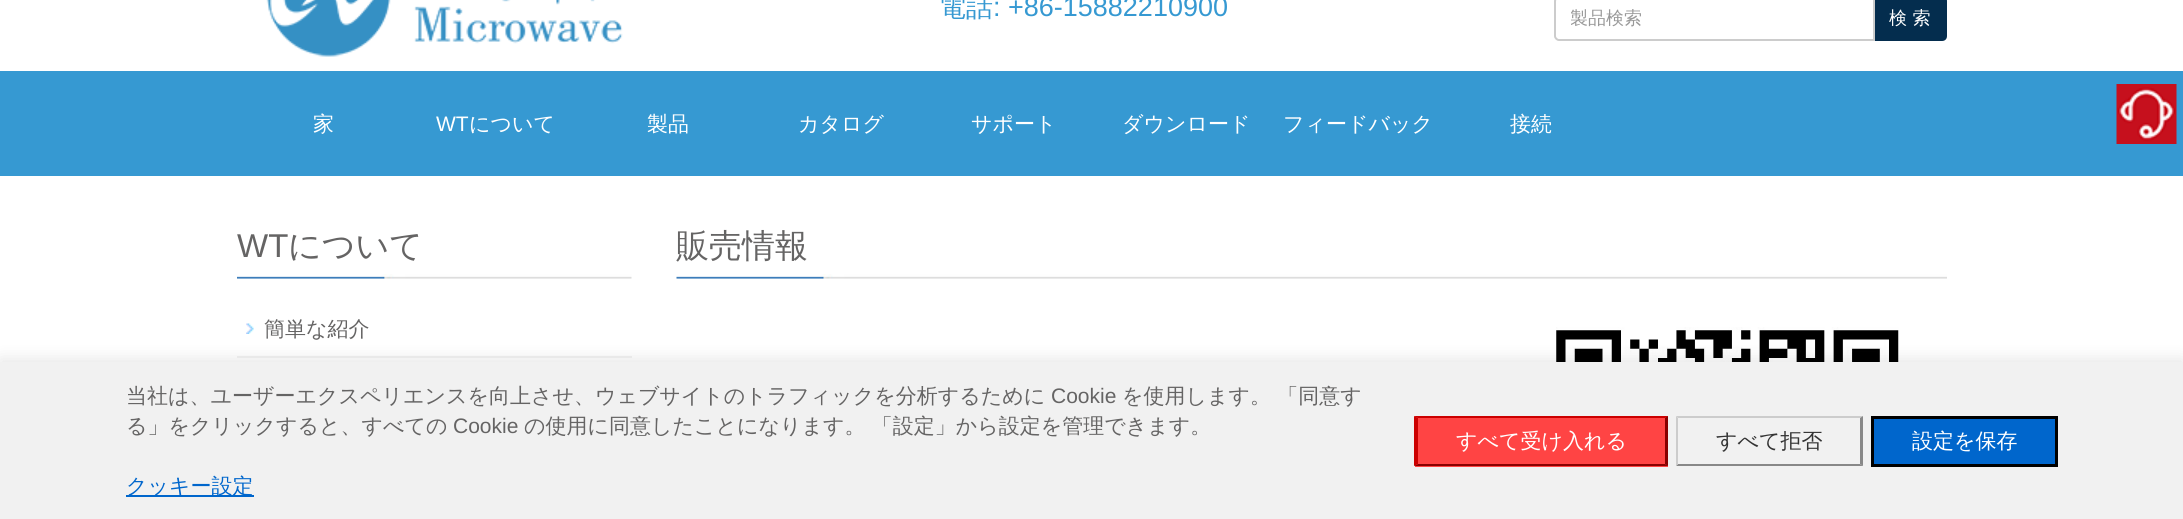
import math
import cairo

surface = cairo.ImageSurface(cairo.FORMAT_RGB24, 2183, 519)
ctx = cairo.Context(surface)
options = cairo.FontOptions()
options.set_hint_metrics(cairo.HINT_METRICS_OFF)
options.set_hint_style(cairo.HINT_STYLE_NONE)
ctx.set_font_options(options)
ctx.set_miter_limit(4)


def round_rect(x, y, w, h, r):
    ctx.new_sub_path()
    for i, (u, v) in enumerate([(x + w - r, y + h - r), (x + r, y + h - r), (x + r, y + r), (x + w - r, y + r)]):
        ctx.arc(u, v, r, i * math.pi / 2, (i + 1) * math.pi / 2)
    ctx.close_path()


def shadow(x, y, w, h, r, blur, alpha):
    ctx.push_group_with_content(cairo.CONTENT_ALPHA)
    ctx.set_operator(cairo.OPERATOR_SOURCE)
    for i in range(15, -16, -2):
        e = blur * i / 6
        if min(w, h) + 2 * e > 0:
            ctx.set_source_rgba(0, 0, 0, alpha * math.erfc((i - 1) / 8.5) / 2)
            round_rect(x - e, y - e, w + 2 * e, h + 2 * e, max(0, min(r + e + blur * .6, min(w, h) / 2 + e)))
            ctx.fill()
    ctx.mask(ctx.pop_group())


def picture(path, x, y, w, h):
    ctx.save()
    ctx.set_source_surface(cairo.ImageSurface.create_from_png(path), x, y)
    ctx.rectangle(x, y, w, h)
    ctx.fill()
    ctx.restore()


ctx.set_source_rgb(1, 1, 1)
ctx.paint()
picture("img1.png", 266, 0, 357, 57)
ctx.select_font_face("WenQuanYi Zen Hei Medium")
ctx.set_font_size(27)
ctx.set_source_rgb(0.212, 0.6, 0.824)
ctx.move_to(939, 16)
ctx.show_text("電話")
ctx.select_font_face("Liberation Sans")
ctx.move_to(993, 16)
ctx.show_text(": +86-15882210900")
ctx.set_source_rgb(0.016, 0.176, 0.306)
ctx.new_path()
ctx.move_to(1874, -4)
ctx.line_to(1942, -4)
ctx.curve_to(1945, -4, 1947, -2, 1947, 1)
ctx.line_to(1947, 36)
ctx.curve_to(1947, 39, 1945, 41, 1942, 41)
ctx.line_to(1874, 41)
ctx.close_path()
ctx.fill()
ctx.set_source_rgb(1, 1, 1)
ctx.new_path()
ctx.move_to(1559, -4)
ctx.line_to(1875, -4)
ctx.line_to(1875, 41)
ctx.line_to(1559, 41)
ctx.curve_to(1556, 41, 1554, 39, 1554, 36)
ctx.line_to(1554, 1)
ctx.curve_to(1554, -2, 1556, -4, 1559, -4)
ctx.close_path()
ctx.fill()
ctx.set_source_rgb(0.925, 0.925, 0.925)
ctx.new_path()
ctx.move_to(1558, -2)
ctx.line_to(1874, -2)
ctx.line_to(1874, -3)
ctx.line_to(1558, -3)
ctx.curve_to(1556, -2, 1556, 0, 1556, 2)
ctx.curve_to(1556, 0, 1557, -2, 1558, -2)
ctx.close_path()
ctx.fill()
ctx.new_path()
ctx.move_to(1559, -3)
ctx.line_to(1874, -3)
ctx.line_to(1874, 40)
ctx.line_to(1559, 40)
ctx.curve_to(1557, 40, 1555, 38, 1555, 36)
ctx.line_to(1555, 1)
ctx.curve_to(1555, -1, 1557, -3, 1559, -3)
ctx.close_path()
ctx.set_source_rgb(0.8, 0.8, 0.8)
ctx.stroke()
ctx.save()
ctx.rectangle(1571, 6, 288, 26)
ctx.clip()
ctx.select_font_face("WenQuanYi Zen Hei Medium")
ctx.set_font_size(18)
ctx.set_source_rgb(0.6, 0.6, 0.6)
ctx.move_to(1570, 24)
ctx.show_text("製品検索")
ctx.restore()
ctx.select_font_face("WenQuanYi Zen Hei Medium")
ctx.set_font_size(18)
ctx.set_source_rgb(1, 1, 1)
ctx.move_to(1889, 24)
ctx.show_text("検 索")
ctx.set_source_rgb(0.212, 0.6, 0.824)
ctx.rectangle(0, 71, 2183, 105)
ctx.fill()
ctx.set_font_size(21)
ctx.set_source_rgb(1, 1, 1)
ctx.move_to(313, 131)
ctx.show_text("家")
ctx.select_font_face("Liberation Sans")
ctx.move_to(436, 131)
ctx.show_text("WT")
ctx.select_font_face("WenQuanYi Zen Hei Medium")
ctx.move_to(469, 131)
ctx.show_text("について")
ctx.move_to(647, 131)
ctx.show_text("製品")
ctx.move_to(798, 131)
ctx.show_text("カタログ")
ctx.move_to(971, 131)
ctx.show_text("サポート")
ctx.move_to(1122, 131)
ctx.show_text("ダウンロード")
ctx.move_to(1283, 131)
ctx.show_text("フィードバック")
ctx.move_to(1510, 131)
ctx.show_text("接続")
picture("img2.png", 2116, 84, 61, 60)
picture("img3.png", 237, 274, 395, 5)
ctx.select_font_face("Liberation Sans")
ctx.set_font_size(33)
ctx.set_source_rgb(0.396, 0.392, 0.392)
ctx.move_to(237, 257)
ctx.show_text("WT")
ctx.select_font_face("WenQuanYi Zen Hei Medium")
ctx.move_to(288, 257)
ctx.show_text("について")
picture("img4.png", 246, 323, 8, 11)
ctx.set_source_rgb(0.949, 0.949, 0.949)
ctx.rectangle(237, 356, 395, 2)
ctx.fill()
ctx.set_font_size(21)
ctx.set_source_rgb(0.396, 0.392, 0.392)
ctx.move_to(264, 336)
ctx.show_text("簡単な紹介")
picture("img5.png", 676, 274, 1271, 5)
ctx.set_font_size(33)
ctx.move_to(676, 257)
ctx.show_text("販売情報")
picture("img6.png", 1556, 327, 343, 35)
ctx.set_source_rgb(0, 0, 0)
shadow(0, 359, 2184, 157, 0, 7.5, 0.1)
ctx.set_source_rgb(0.945, 0.945, 0.945)
ctx.rectangle(0, 362, 2183, 157)
ctx.fill()
ctx.set_font_size(21)
ctx.set_source_rgb(0.396, 0.392, 0.392)
ctx.move_to(126, 403)
ctx.show_text("当社は、ユーザーエクスペリエンスを向上させ、ウェブサイトのトラフィックを分析するために")
ctx.select_font_face("Liberation Sans")
ctx.move_to(1051, 403)
ctx.show_text("Cookie")
ctx.select_font_face("WenQuanYi Zen Hei Medium")
ctx.move_to(1122, 403)
ctx.show_text("を使用します。 「同意す")
ctx.move_to(126, 433)
ctx.show_text("る」をクリックすると、すべての")
ctx.select_font_face("Liberation Sans")
ctx.move_to(453, 433)
ctx.show_text("Cookie")
ctx.select_font_face("WenQuanYi Zen Hei Medium")
ctx.move_to(524, 433)
ctx.show_text("の使用に同意したことになります。 「設定」から設定を管理できます。")
ctx.set_source_rgb(0, 0.4, 0.8)
ctx.rectangle(126, 495, 128, 2)
ctx.fill()
ctx.move_to(126, 493)
ctx.show_text("クッキー設定")
ctx.set_source_rgb(1, 0.267, 0.267)
ctx.rectangle(1415, 416, 253, 51)
ctx.fill()
ctx.set_source_rgb(0.8, 0, 0)
ctx.new_path()
ctx.move_to(1414, 416)
ctx.line_to(1668, 416)
ctx.line_to(1665, 418)
ctx.line_to(1418, 418)
ctx.close_path()
ctx.fill()
ctx.set_source_rgb(0.533, 0, 0)
ctx.new_path()
ctx.move_to(1668, 416)
ctx.line_to(1668, 466)
ctx.line_to(1665, 464)
ctx.line_to(1665, 418)
ctx.close_path()
ctx.fill()
ctx.new_path()
ctx.move_to(1668, 466)
ctx.line_to(1414, 466)
ctx.line_to(1418, 464)
ctx.line_to(1665, 464)
ctx.close_path()
ctx.fill()
ctx.set_source_rgb(0.8, 0, 0)
ctx.new_path()
ctx.move_to(1414, 466)
ctx.line_to(1414, 416)
ctx.line_to(1418, 418)
ctx.line_to(1418, 464)
ctx.close_path()
ctx.fill()
ctx.set_source_rgb(1, 1, 1)
ctx.move_to(1456, 448)
ctx.show_text("すべて受け入れる")
ctx.set_source_rgb(0.8, 0.8, 0.8)
ctx.new_path()
ctx.move_to(1676, 416)
ctx.line_to(1863, 416)
ctx.line_to(1860, 418)
ctx.line_to(1678, 418)
ctx.close_path()
ctx.fill()
ctx.set_source_rgb(0.533, 0.533, 0.533)
ctx.new_path()
ctx.move_to(1863, 416)
ctx.line_to(1863, 466)
ctx.line_to(1860, 464)
ctx.line_to(1860, 418)
ctx.close_path()
ctx.fill()
ctx.new_path()
ctx.move_to(1863, 466)
ctx.line_to(1676, 466)
ctx.line_to(1678, 464)
ctx.line_to(1860, 464)
ctx.close_path()
ctx.fill()
ctx.set_source_rgb(0.8, 0.8, 0.8)
ctx.new_path()
ctx.move_to(1676, 466)
ctx.line_to(1676, 416)
ctx.line_to(1678, 418)
ctx.line_to(1678, 464)
ctx.close_path()
ctx.fill()
ctx.set_source_rgb(0.2, 0.2, 0.2)
ctx.move_to(1716, 448)
ctx.show_text("すべて拒否")
ctx.set_source_rgb(0, 0.4, 0.8)
ctx.rectangle(1872.5, 417.5, 184, 48)
ctx.fill_preserve()
ctx.set_source_rgb(0, 0, 0)
ctx.set_line_width(3)
ctx.stroke()
ctx.set_source_rgb(1, 1, 1)
ctx.move_to(1912, 448)
ctx.show_text("設定を保存")
surface.write_to_png("page.png")
